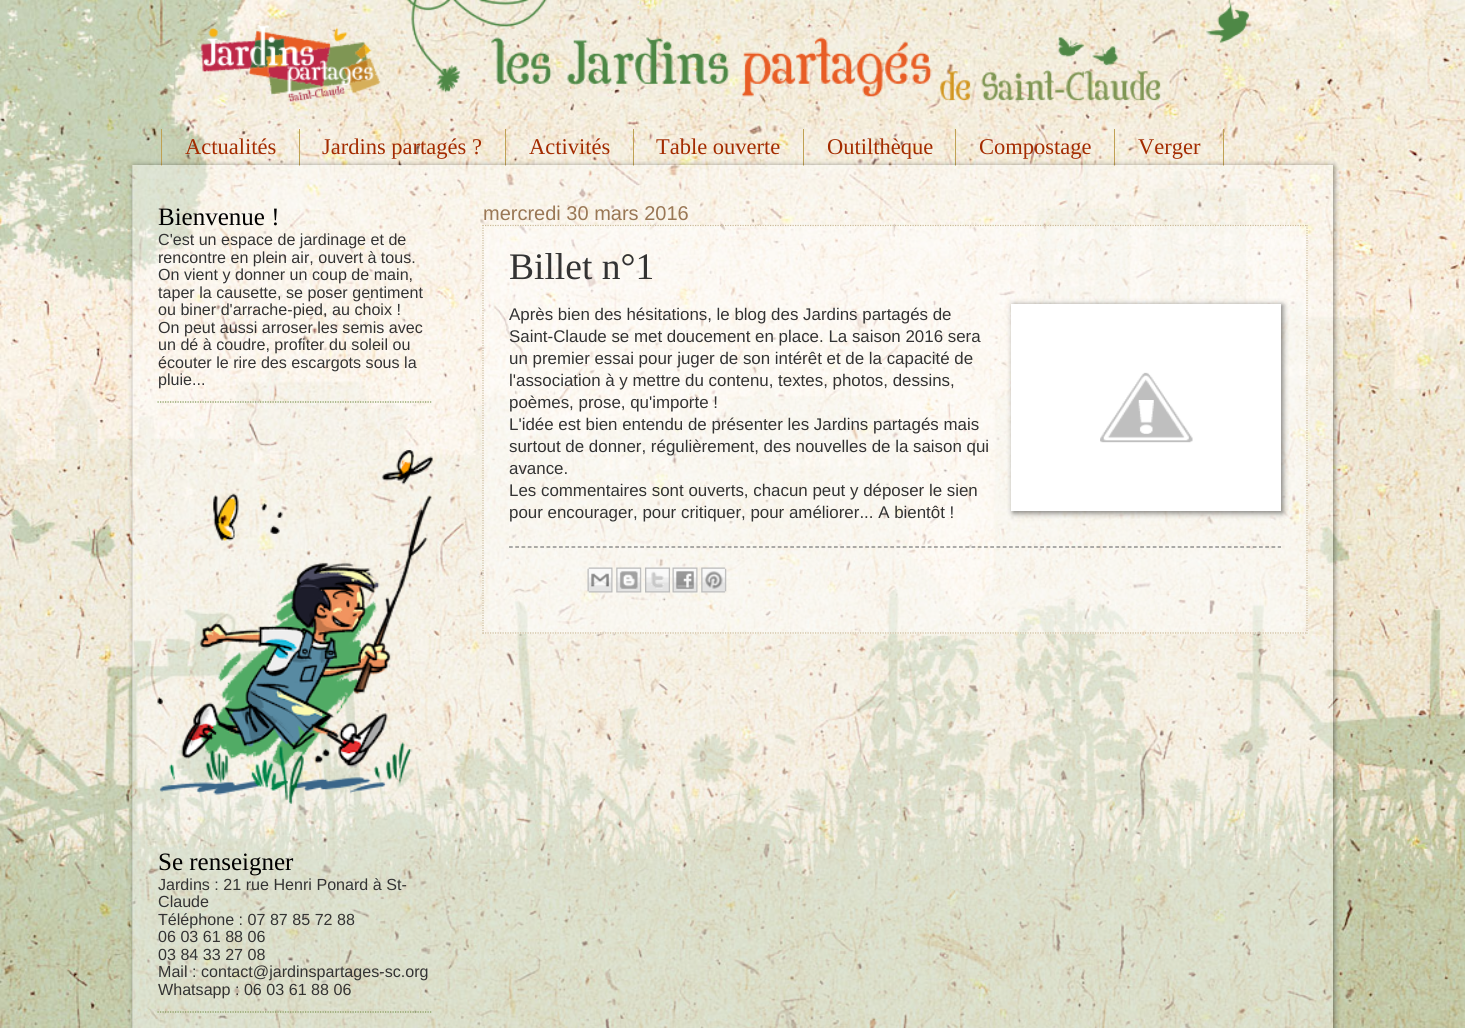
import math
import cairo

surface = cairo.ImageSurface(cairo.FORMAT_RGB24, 1465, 1028)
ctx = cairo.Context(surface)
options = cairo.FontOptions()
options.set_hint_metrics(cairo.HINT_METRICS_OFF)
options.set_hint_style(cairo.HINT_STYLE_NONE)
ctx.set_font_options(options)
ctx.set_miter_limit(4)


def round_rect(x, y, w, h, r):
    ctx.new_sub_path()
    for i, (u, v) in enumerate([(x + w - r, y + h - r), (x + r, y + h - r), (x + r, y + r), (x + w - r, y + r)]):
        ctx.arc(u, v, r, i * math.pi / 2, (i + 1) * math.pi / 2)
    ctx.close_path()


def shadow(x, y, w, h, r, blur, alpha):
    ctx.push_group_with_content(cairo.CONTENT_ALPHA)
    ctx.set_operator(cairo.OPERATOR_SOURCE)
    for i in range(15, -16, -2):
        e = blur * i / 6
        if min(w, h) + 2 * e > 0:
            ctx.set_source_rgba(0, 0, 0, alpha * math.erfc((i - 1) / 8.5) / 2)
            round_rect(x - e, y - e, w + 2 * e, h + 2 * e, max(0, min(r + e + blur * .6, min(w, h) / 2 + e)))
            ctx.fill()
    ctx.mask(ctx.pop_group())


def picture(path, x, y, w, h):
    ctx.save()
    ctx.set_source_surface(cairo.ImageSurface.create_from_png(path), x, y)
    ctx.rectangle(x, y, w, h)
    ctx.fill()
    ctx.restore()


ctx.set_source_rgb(1, 1, 1)
ctx.paint()
picture("img1.png", 0, 0, 1465, 1028)
picture("img2.png", 201, 0, 1048, 102)
ctx.set_source_rgb(0.753, 0.631, 0.329)
ctx.rectangle(299, 129, 1, 37)
ctx.fill()
ctx.rectangle(161, 129, 1, 37)
ctx.fill()
ctx.select_font_face("Liberation Serif")
ctx.set_font_size(22.5)
ctx.set_source_rgb(0.639, 0.169, 0)
ctx.move_to(185, 154)
ctx.show_text("Actualités")
ctx.set_source_rgb(0.753, 0.631, 0.329)
ctx.rectangle(505, 129, 1, 37)
ctx.fill()
ctx.set_source_rgb(0.639, 0.169, 0)
ctx.move_to(322, 154)
ctx.show_text("Jardins partagés ?")
ctx.set_source_rgb(0.753, 0.631, 0.329)
ctx.rectangle(633, 129, 1, 37)
ctx.fill()
ctx.set_source_rgb(0.639, 0.169, 0)
ctx.move_to(529, 154)
ctx.show_text("Activités")
ctx.set_source_rgb(0.753, 0.631, 0.329)
ctx.rectangle(803, 129, 1, 37)
ctx.fill()
ctx.set_source_rgb(0.639, 0.169, 0)
ctx.move_to(656, 154)
ctx.show_text("Table ouverte")
ctx.set_source_rgb(0.753, 0.631, 0.329)
ctx.rectangle(955, 129, 1, 37)
ctx.fill()
ctx.set_source_rgb(0.639, 0.169, 0)
ctx.move_to(827, 154)
ctx.show_text("Outilthèque")
ctx.set_source_rgb(0.753, 0.631, 0.329)
ctx.rectangle(1114, 129, 1, 37)
ctx.fill()
ctx.set_source_rgb(0.639, 0.169, 0)
ctx.move_to(979, 154)
ctx.show_text("Compostage")
ctx.set_source_rgb(0.753, 0.631, 0.329)
ctx.rectangle(1223, 129, 1, 37)
ctx.fill()
ctx.set_source_rgb(0.639, 0.169, 0)
ctx.move_to(1138, 154)
ctx.show_text("Verger")
ctx.save()
ctx.set_fill_rule(cairo.FILL_RULE_EVEN_ODD)
ctx.new_path()
ctx.move_to(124, 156)
ctx.line_to(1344, 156)
ctx.line_to(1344, 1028)
ctx.line_to(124, 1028)
ctx.close_path()
ctx.move_to(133, 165)
ctx.line_to(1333, 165)
ctx.line_to(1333, 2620)
ctx.line_to(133, 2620)
ctx.close_path()
ctx.clip()
ctx.set_source_rgb(0, 0, 0)
shadow(134, 166, 1200, 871, 0, 3, 0.5)
ctx.restore()
ctx.set_source_rgba(1, 1, 1, 0.4)
ctx.rectangle(132, 165, 1201, 863)
ctx.fill()
ctx.new_path()
ctx.move_to(157.5, 402)
ctx.line_to(432.5, 402)
ctx.set_source_rgb(0.498, 0.588, 0.329)
ctx.set_line_width(1.2)
ctx.set_dash([1.25, 1.25])
ctx.stroke()
ctx.set_font_size(25)
ctx.set_source_rgb(0, 0, 0)
ctx.move_to(158, 225)
ctx.show_text("Bienvenue !")
ctx.select_font_face("Liberation Sans")
ctx.set_font_size(16.1)
ctx.set_source_rgb(0.2, 0.2, 0.2)
ctx.move_to(158, 245)
ctx.show_text("C'est un espace de jardinage et de")
ctx.move_to(158, 263)
ctx.show_text("rencontre en plein air, ouvert à tous.")
ctx.move_to(158, 280)
ctx.show_text("On vient y donner un coup de main,")
ctx.move_to(158, 298)
ctx.show_text("taper la causette, se poser gentiment")
ctx.move_to(158, 315)
ctx.show_text("ou biner d'arrache-pied, au choix !")
ctx.move_to(158, 333)
ctx.show_text("On peut aussi arroser les semis avec")
ctx.move_to(158, 350)
ctx.show_text("un dé à coudre, profiter du soleil ou")
ctx.move_to(158, 368)
ctx.show_text("écouter le rire des escargots sous la")
ctx.move_to(158, 385)
ctx.show_text("pluie...")
picture("img3.png", 157, 450, 276, 354)
ctx.new_path()
ctx.move_to(157.5, 1012)
ctx.line_to(432.5, 1012)
ctx.set_source_rgb(0.498, 0.588, 0.329)
ctx.stroke()
ctx.select_font_face("Liberation Serif")
ctx.set_font_size(25)
ctx.set_source_rgb(0, 0, 0)
ctx.move_to(158, 870)
ctx.show_text("Se renseigner")
ctx.select_font_face("Liberation Sans")
ctx.set_font_size(16.1)
ctx.set_source_rgb(0.2, 0.2, 0.2)
ctx.move_to(158, 890)
ctx.show_text("Jardins : 21 rue Henri Ponard à St-")
ctx.move_to(158, 907)
ctx.show_text("Claude")
ctx.move_to(158, 925)
ctx.show_text("Téléphone : 07 87 85 72 88")
ctx.move_to(158, 942)
ctx.show_text("06 03 61 88 06")
ctx.move_to(158, 960)
ctx.show_text("03 84 33 27 08")
ctx.move_to(158, 977)
ctx.show_text("Mail : contact@jardinspartages-sc.org")
ctx.move_to(158, 995)
ctx.show_text("Whatsapp : 06 03 61 88 06")
ctx.set_font_size(20)
ctx.set_source_rgb(0.6, 0.467, 0.333)
ctx.move_to(483, 220)
ctx.show_text("mercredi 30 mars 2016")
ctx.set_source_rgba(1, 1, 1, 0.4)
ctx.rectangle(482, 225, 826, 409)
ctx.fill()
ctx.new_path()
ctx.move_to(482.5, 225.5)
ctx.line_to(1307.5, 225.5)
ctx.set_source_rgb(0.8, 0.733, 0.6)
ctx.stroke()
ctx.new_path()
ctx.move_to(1307, 225)
ctx.line_to(1307, 634)
ctx.stroke()
ctx.new_path()
ctx.move_to(482.5, 633)
ctx.line_to(1307.5, 633)
ctx.stroke()
ctx.new_path()
ctx.move_to(483, 225)
ctx.line_to(483, 634)
ctx.stroke()
ctx.select_font_face("Liberation Serif")
ctx.set_font_size(37.5)
ctx.set_source_rgb(0.2, 0.2, 0.2)
ctx.move_to(509, 279)
ctx.show_text("Billet n°1")
ctx.select_font_face("Liberation Sans")
ctx.set_font_size(16.9)
ctx.move_to(509, 320)
ctx.show_text("Après bien des hésitations, le blog des Jardins partagés de")
ctx.set_source_rgb(0, 0, 0)
shadow(1013, 305, 270, 208, 0, 3, 0.5)
ctx.set_source_rgb(1, 1, 1)
ctx.rectangle(1011, 304, 270, 207)
ctx.fill()
picture("img4.png", 1100, 372, 93, 71)
ctx.set_source_rgb(0.2, 0.2, 0.2)
ctx.move_to(509, 342)
ctx.show_text("Saint-Claude se met doucement en place. La saison 2016 sera")
ctx.move_to(509, 364)
ctx.show_text("un premier essai pour juger de son intérêt et de la capacité de")
ctx.move_to(509, 386)
ctx.show_text("l'association à y mettre du contenu, textes, photos, dessins,")
ctx.move_to(509, 408)
ctx.show_text("poèmes, prose, qu'importe !")
ctx.move_to(509, 430)
ctx.show_text("L'idée est bien entendu de présenter les Jardins partagés mais")
ctx.move_to(509, 452)
ctx.show_text("surtout de donner, régulièrement, des nouvelles de la saison qui")
ctx.move_to(509, 474)
ctx.show_text("avance.")
ctx.move_to(509, 496)
ctx.show_text("Les commentaires sont ouverts, chacun peut y déposer le sien")
ctx.move_to(509, 518)
ctx.show_text("pour encourager, pour critiquer, pour améliorer... A bientôt !")
ctx.new_path()
ctx.move_to(509, 547)
ctx.line_to(1281, 547)
ctx.set_source_rgb(0.467, 0.467, 0.467)
ctx.set_dash([3.75, 2.5])
ctx.stroke()
picture("img5.png", 587, 567, 26, 26)
picture("img6.png", 616, 567, 26, 26)
picture("img7.png", 645, 567, 25, 26)
picture("img8.png", 672, 567, 26, 26)
picture("img9.png", 701, 567, 26, 26)
surface.write_to_png("page.png")
